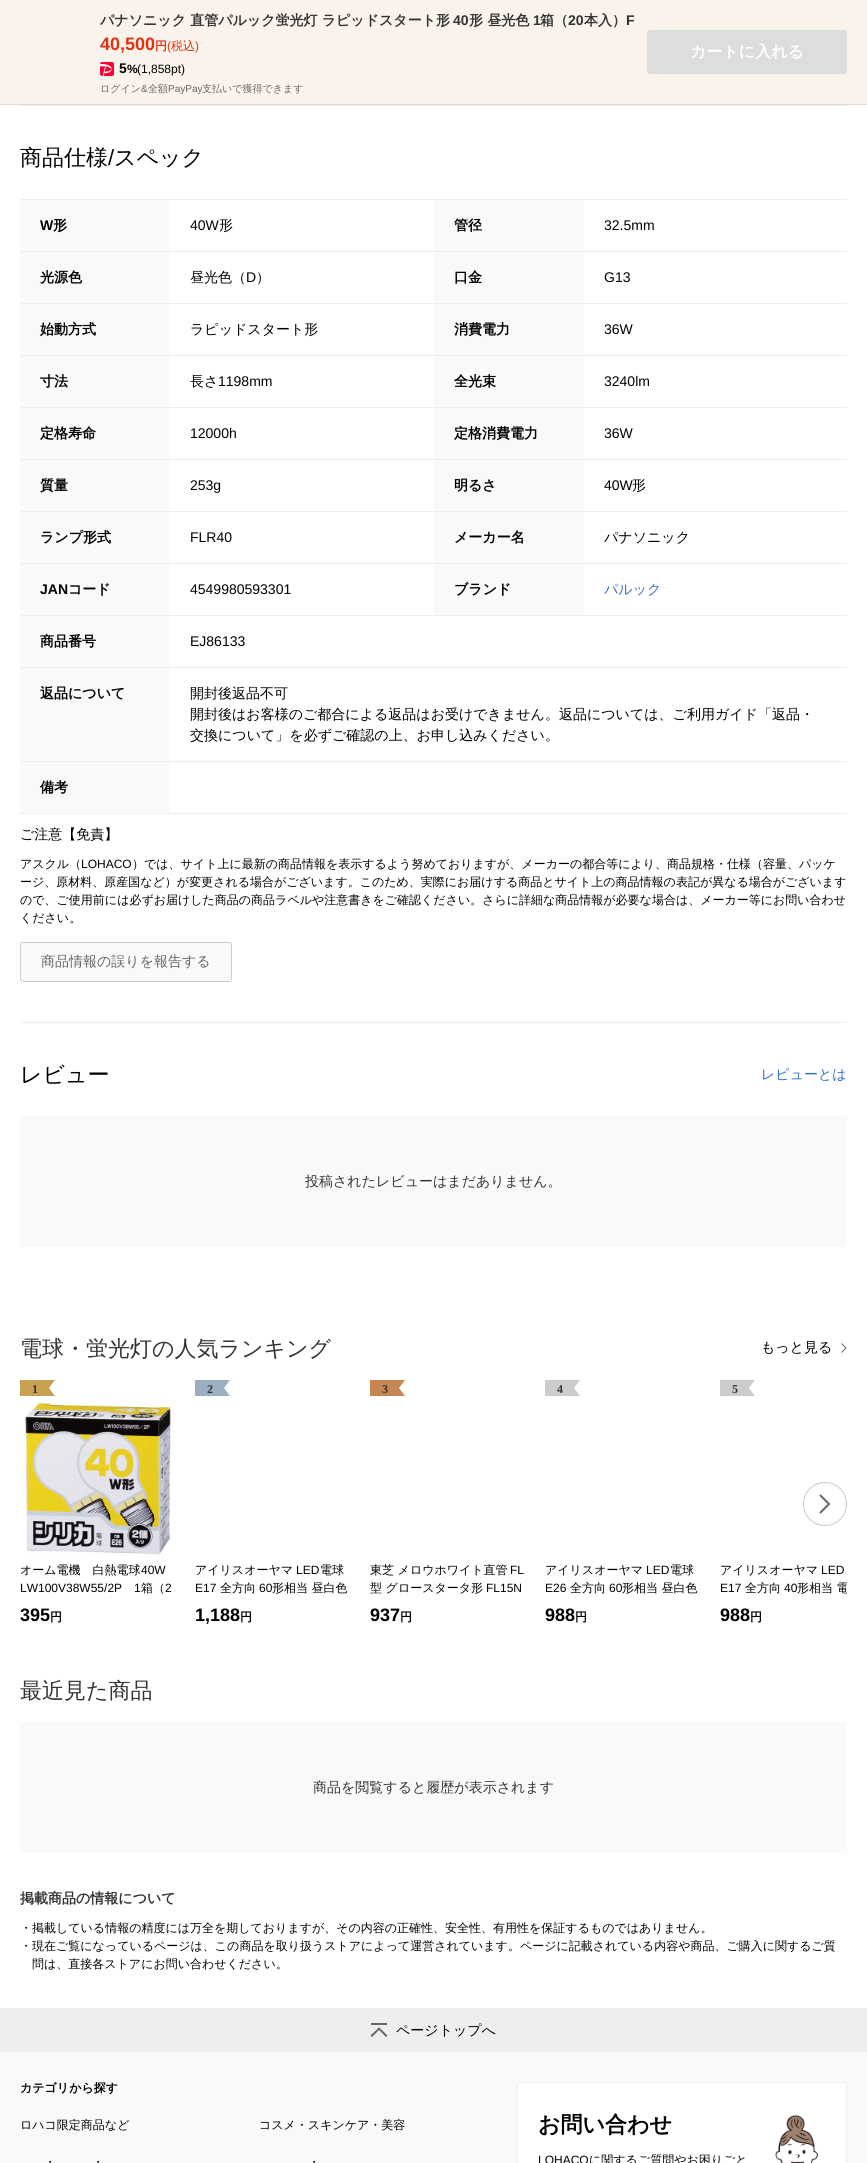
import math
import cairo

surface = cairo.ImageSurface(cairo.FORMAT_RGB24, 867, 2163)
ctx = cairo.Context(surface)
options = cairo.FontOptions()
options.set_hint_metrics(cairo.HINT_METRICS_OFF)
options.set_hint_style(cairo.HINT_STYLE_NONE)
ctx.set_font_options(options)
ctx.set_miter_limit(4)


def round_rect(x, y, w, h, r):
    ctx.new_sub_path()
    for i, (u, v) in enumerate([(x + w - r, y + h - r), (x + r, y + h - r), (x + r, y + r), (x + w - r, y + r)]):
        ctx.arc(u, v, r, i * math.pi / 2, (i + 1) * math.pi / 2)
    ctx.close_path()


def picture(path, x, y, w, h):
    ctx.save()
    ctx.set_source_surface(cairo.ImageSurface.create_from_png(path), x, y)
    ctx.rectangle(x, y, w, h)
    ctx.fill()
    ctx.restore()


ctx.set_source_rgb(1, 1, 1)
ctx.paint()
ctx.set_source_rgb(0.867, 0.867, 0.867)
ctx.rectangle(0, 104, 867, 1)
ctx.fill()
ctx.set_source_rgb(0.973, 0.953, 0.922)
ctx.rectangle(0, 0, 867, 104)
ctx.fill()
ctx.select_font_face("WenQuanYi Zen Hei", cairo.FONT_SLANT_NORMAL, cairo.FONT_WEIGHT_BOLD)
ctx.set_font_size(14)
ctx.set_source_rgb(0.2, 0.2, 0.2)
ctx.move_to(100, 25)
ctx.show_text("パナソニック 直管パルック蛍光灯 ラピッドスタート形")
ctx.select_font_face("Liberation Sans", cairo.FONT_SLANT_NORMAL, cairo.FONT_WEIGHT_BOLD)
ctx.move_to(453, 25)
ctx.show_text("40")
ctx.select_font_face("WenQuanYi Zen Hei", cairo.FONT_SLANT_NORMAL, cairo.FONT_WEIGHT_BOLD)
ctx.move_to(469, 25)
ctx.show_text("形 昼光色")
ctx.select_font_face("Liberation Sans", cairo.FONT_SLANT_NORMAL, cairo.FONT_WEIGHT_BOLD)
ctx.move_to(533, 25)
ctx.show_text("1")
ctx.select_font_face("WenQuanYi Zen Hei", cairo.FONT_SLANT_NORMAL, cairo.FONT_WEIGHT_BOLD)
ctx.move_to(540, 25)
ctx.show_text("箱（")
ctx.select_font_face("Liberation Sans", cairo.FONT_SLANT_NORMAL, cairo.FONT_WEIGHT_BOLD)
ctx.move_to(568, 25)
ctx.show_text("20")
ctx.select_font_face("WenQuanYi Zen Hei", cairo.FONT_SLANT_NORMAL, cairo.FONT_WEIGHT_BOLD)
ctx.move_to(584, 25)
ctx.show_text("本入）")
ctx.select_font_face("Liberation Sans", cairo.FONT_SLANT_NORMAL, cairo.FONT_WEIGHT_BOLD)
ctx.move_to(626, 25)
ctx.show_text("F")
ctx.set_font_size(18)
ctx.set_source_rgb(0.878, 0.2, 0.067)
ctx.move_to(100, 50)
ctx.show_text("40,500")
ctx.select_font_face("WenQuanYi Zen Hei", cairo.FONT_SLANT_NORMAL, cairo.FONT_WEIGHT_BOLD)
ctx.set_font_size(12)
ctx.move_to(155, 50)
ctx.show_text("円")
ctx.select_font_face("Liberation Sans")
ctx.move_to(167, 50)
ctx.show_text("(")
ctx.select_font_face("WenQuanYi Zen Hei Medium")
ctx.move_to(171, 50)
ctx.show_text("税込")
ctx.select_font_face("Liberation Sans")
ctx.move_to(195, 50)
ctx.show_text(")")
picture("img1.png", 100, 62, 14, 14)
ctx.select_font_face("Liberation Sans", cairo.FONT_SLANT_NORMAL, cairo.FONT_WEIGHT_BOLD)
ctx.set_font_size(14)
ctx.set_source_rgb(0, 0, 0)
ctx.move_to(119, 73)
ctx.show_text("5")
ctx.set_font_size(12)
ctx.move_to(127, 73)
ctx.show_text("%")
ctx.select_font_face("Liberation Sans")
ctx.move_to(137, 73)
ctx.show_text("(1,858pt)")
ctx.select_font_face("WenQuanYi Zen Hei Medium")
ctx.set_font_size(10)
ctx.set_source_rgb(0.4, 0.4, 0.4)
ctx.move_to(100, 92)
ctx.show_text("ログイン")
ctx.select_font_face("Liberation Sans")
ctx.move_to(141, 92)
ctx.show_text("&")
ctx.select_font_face("WenQuanYi Zen Hei Medium")
ctx.move_to(148, 92)
ctx.show_text("全額")
ctx.select_font_face("Liberation Sans")
ctx.move_to(168, 92)
ctx.show_text("PayPay")
ctx.select_font_face("WenQuanYi Zen Hei Medium")
ctx.move_to(202, 92)
ctx.show_text("支払いで獲得できます")
ctx.set_source_rgb(0.867, 0.867, 0.867)
round_rect(647, 30, 200, 44, 3)
ctx.fill()
ctx.select_font_face("WenQuanYi Zen Hei", cairo.FONT_SLANT_NORMAL, cairo.FONT_WEIGHT_BOLD)
ctx.set_font_size(16)
ctx.set_source_rgb(1, 1, 1)
ctx.move_to(690, 57)
ctx.show_text("カートに入れる")
ctx.set_source_rgb(0.933, 0.933, 0.933)
ctx.rectangle(20, 105, 827, 1)
ctx.fill()
ctx.select_font_face("WenQuanYi Zen Hei Medium")
ctx.set_font_size(22)
ctx.set_source_rgb(0, 0, 0)
ctx.move_to(20, 165)
ctx.show_text("商品仕様")
ctx.select_font_face("Liberation Sans")
ctx.move_to(108, 165)
ctx.show_text("/")
ctx.select_font_face("WenQuanYi Zen Hei Medium")
ctx.move_to(114, 165)
ctx.show_text("スペック")
ctx.set_source_rgb(0.933, 0.933, 0.933)
ctx.rectangle(20, 199, 827, 1)
ctx.fill()
ctx.rectangle(20, 251, 827, 1)
ctx.fill()
ctx.set_source_rgb(0.973, 0.973, 0.973)
ctx.rectangle(20, 200, 150, 51)
ctx.fill()
ctx.select_font_face("Liberation Sans", cairo.FONT_SLANT_NORMAL, cairo.FONT_WEIGHT_BOLD)
ctx.set_font_size(14)
ctx.set_source_rgb(0, 0, 0)
ctx.move_to(40, 230)
ctx.show_text("W")
ctx.select_font_face("WenQuanYi Zen Hei", cairo.FONT_SLANT_NORMAL, cairo.FONT_WEIGHT_BOLD)
ctx.move_to(53, 230)
ctx.show_text("形")
ctx.select_font_face("Liberation Sans")
ctx.move_to(190, 230)
ctx.show_text("40W")
ctx.select_font_face("WenQuanYi Zen Hei Medium")
ctx.move_to(219, 230)
ctx.show_text("形")
ctx.set_source_rgb(0.973, 0.973, 0.973)
ctx.rectangle(434, 200, 150, 51)
ctx.fill()
ctx.select_font_face("WenQuanYi Zen Hei", cairo.FONT_SLANT_NORMAL, cairo.FONT_WEIGHT_BOLD)
ctx.set_source_rgb(0, 0, 0)
ctx.move_to(454, 230)
ctx.show_text("管径")
ctx.select_font_face("Liberation Sans")
ctx.move_to(604, 230)
ctx.show_text("32.5mm")
ctx.set_source_rgb(0.933, 0.933, 0.933)
ctx.rectangle(20, 303, 827, 1)
ctx.fill()
ctx.set_source_rgb(0.973, 0.973, 0.973)
ctx.rectangle(20, 252, 150, 51)
ctx.fill()
ctx.select_font_face("WenQuanYi Zen Hei", cairo.FONT_SLANT_NORMAL, cairo.FONT_WEIGHT_BOLD)
ctx.set_source_rgb(0, 0, 0)
ctx.move_to(40, 282)
ctx.show_text("光源色")
ctx.select_font_face("WenQuanYi Zen Hei Medium")
ctx.move_to(190, 282)
ctx.show_text("昼光色（")
ctx.select_font_face("Liberation Sans")
ctx.move_to(246, 282)
ctx.show_text("D")
ctx.select_font_face("WenQuanYi Zen Hei Medium")
ctx.move_to(256, 282)
ctx.show_text("）")
ctx.set_source_rgb(0.973, 0.973, 0.973)
ctx.rectangle(434, 252, 150, 51)
ctx.fill()
ctx.select_font_face("WenQuanYi Zen Hei", cairo.FONT_SLANT_NORMAL, cairo.FONT_WEIGHT_BOLD)
ctx.set_source_rgb(0, 0, 0)
ctx.move_to(454, 282)
ctx.show_text("口金")
ctx.select_font_face("Liberation Sans")
ctx.move_to(604, 282)
ctx.show_text("G13")
ctx.set_source_rgb(0.933, 0.933, 0.933)
ctx.rectangle(20, 355, 827, 1)
ctx.fill()
ctx.set_source_rgb(0.973, 0.973, 0.973)
ctx.rectangle(20, 304, 150, 51)
ctx.fill()
ctx.select_font_face("WenQuanYi Zen Hei", cairo.FONT_SLANT_NORMAL, cairo.FONT_WEIGHT_BOLD)
ctx.set_source_rgb(0, 0, 0)
ctx.move_to(40, 334)
ctx.show_text("始動方式")
ctx.select_font_face("WenQuanYi Zen Hei Medium")
ctx.move_to(190, 334)
ctx.show_text("ラピッドスタート形")
ctx.set_source_rgb(0.973, 0.973, 0.973)
ctx.rectangle(434, 304, 150, 51)
ctx.fill()
ctx.select_font_face("WenQuanYi Zen Hei", cairo.FONT_SLANT_NORMAL, cairo.FONT_WEIGHT_BOLD)
ctx.set_source_rgb(0, 0, 0)
ctx.move_to(454, 334)
ctx.show_text("消費電力")
ctx.select_font_face("Liberation Sans")
ctx.move_to(604, 334)
ctx.show_text("36W")
ctx.set_source_rgb(0.933, 0.933, 0.933)
ctx.rectangle(20, 407, 827, 1)
ctx.fill()
ctx.set_source_rgb(0.973, 0.973, 0.973)
ctx.rectangle(20, 356, 150, 51)
ctx.fill()
ctx.select_font_face("WenQuanYi Zen Hei", cairo.FONT_SLANT_NORMAL, cairo.FONT_WEIGHT_BOLD)
ctx.set_source_rgb(0, 0, 0)
ctx.move_to(40, 386)
ctx.show_text("寸法")
ctx.select_font_face("WenQuanYi Zen Hei Medium")
ctx.move_to(190, 386)
ctx.show_text("長さ")
ctx.select_font_face("Liberation Sans")
ctx.move_to(218, 386)
ctx.show_text("1198mm")
ctx.set_source_rgb(0.973, 0.973, 0.973)
ctx.rectangle(434, 356, 150, 51)
ctx.fill()
ctx.select_font_face("WenQuanYi Zen Hei", cairo.FONT_SLANT_NORMAL, cairo.FONT_WEIGHT_BOLD)
ctx.set_source_rgb(0, 0, 0)
ctx.move_to(454, 386)
ctx.show_text("全光束")
ctx.select_font_face("Liberation Sans")
ctx.move_to(604, 386)
ctx.show_text("3240lm")
ctx.set_source_rgb(0.933, 0.933, 0.933)
ctx.rectangle(20, 459, 827, 1)
ctx.fill()
ctx.set_source_rgb(0.973, 0.973, 0.973)
ctx.rectangle(20, 408, 150, 51)
ctx.fill()
ctx.select_font_face("WenQuanYi Zen Hei", cairo.FONT_SLANT_NORMAL, cairo.FONT_WEIGHT_BOLD)
ctx.set_source_rgb(0, 0, 0)
ctx.move_to(40, 438)
ctx.show_text("定格寿命")
ctx.select_font_face("Liberation Sans")
ctx.move_to(190, 438)
ctx.show_text("12000h")
ctx.set_source_rgb(0.973, 0.973, 0.973)
ctx.rectangle(434, 408, 150, 51)
ctx.fill()
ctx.select_font_face("WenQuanYi Zen Hei", cairo.FONT_SLANT_NORMAL, cairo.FONT_WEIGHT_BOLD)
ctx.set_source_rgb(0, 0, 0)
ctx.move_to(454, 438)
ctx.show_text("定格消費電力")
ctx.select_font_face("Liberation Sans")
ctx.move_to(604, 438)
ctx.show_text("36W")
ctx.set_source_rgb(0.933, 0.933, 0.933)
ctx.rectangle(20, 511, 827, 1)
ctx.fill()
ctx.set_source_rgb(0.973, 0.973, 0.973)
ctx.rectangle(20, 460, 150, 51)
ctx.fill()
ctx.select_font_face("WenQuanYi Zen Hei", cairo.FONT_SLANT_NORMAL, cairo.FONT_WEIGHT_BOLD)
ctx.set_source_rgb(0, 0, 0)
ctx.move_to(40, 490)
ctx.show_text("質量")
ctx.select_font_face("Liberation Sans")
ctx.move_to(190, 490)
ctx.show_text("253g")
ctx.set_source_rgb(0.973, 0.973, 0.973)
ctx.rectangle(434, 460, 150, 51)
ctx.fill()
ctx.select_font_face("WenQuanYi Zen Hei", cairo.FONT_SLANT_NORMAL, cairo.FONT_WEIGHT_BOLD)
ctx.set_source_rgb(0, 0, 0)
ctx.move_to(454, 490)
ctx.show_text("明るさ")
ctx.select_font_face("Liberation Sans")
ctx.move_to(604, 490)
ctx.show_text("40W")
ctx.select_font_face("WenQuanYi Zen Hei Medium")
ctx.move_to(632, 490)
ctx.show_text("形")
ctx.set_source_rgb(0.933, 0.933, 0.933)
ctx.rectangle(20, 563, 827, 1)
ctx.fill()
ctx.set_source_rgb(0.973, 0.973, 0.973)
ctx.rectangle(20, 512, 150, 51)
ctx.fill()
ctx.select_font_face("WenQuanYi Zen Hei", cairo.FONT_SLANT_NORMAL, cairo.FONT_WEIGHT_BOLD)
ctx.set_source_rgb(0, 0, 0)
ctx.move_to(40, 542)
ctx.show_text("ランプ形式")
ctx.select_font_face("Liberation Sans")
ctx.move_to(190, 542)
ctx.show_text("FLR40")
ctx.set_source_rgb(0.973, 0.973, 0.973)
ctx.rectangle(434, 512, 150, 51)
ctx.fill()
ctx.select_font_face("WenQuanYi Zen Hei", cairo.FONT_SLANT_NORMAL, cairo.FONT_WEIGHT_BOLD)
ctx.set_source_rgb(0, 0, 0)
ctx.move_to(454, 542)
ctx.show_text("メーカー名")
ctx.select_font_face("WenQuanYi Zen Hei Medium")
ctx.move_to(604, 542)
ctx.show_text("パナソニック")
ctx.set_source_rgb(0.933, 0.933, 0.933)
ctx.rectangle(20, 615, 827, 1)
ctx.fill()
ctx.set_source_rgb(0.973, 0.973, 0.973)
ctx.rectangle(20, 564, 150, 51)
ctx.fill()
ctx.select_font_face("Liberation Sans", cairo.FONT_SLANT_NORMAL, cairo.FONT_WEIGHT_BOLD)
ctx.set_source_rgb(0, 0, 0)
ctx.move_to(40, 594)
ctx.show_text("JAN")
ctx.select_font_face("WenQuanYi Zen Hei", cairo.FONT_SLANT_NORMAL, cairo.FONT_WEIGHT_BOLD)
ctx.move_to(68, 594)
ctx.show_text("コード")
ctx.select_font_face("Liberation Sans")
ctx.move_to(190, 594)
ctx.show_text("4549980593301")
ctx.set_source_rgb(0.973, 0.973, 0.973)
ctx.rectangle(434, 564, 150, 51)
ctx.fill()
ctx.select_font_face("WenQuanYi Zen Hei", cairo.FONT_SLANT_NORMAL, cairo.FONT_WEIGHT_BOLD)
ctx.set_source_rgb(0, 0, 0)
ctx.move_to(454, 594)
ctx.show_text("ブランド")
ctx.select_font_face("WenQuanYi Zen Hei Medium")
ctx.set_source_rgb(0.188, 0.431, 0.788)
ctx.move_to(604, 594)
ctx.show_text("パルック")
ctx.set_source_rgb(0.933, 0.933, 0.933)
ctx.rectangle(20, 667, 827, 1)
ctx.fill()
ctx.set_source_rgb(0.973, 0.973, 0.973)
ctx.rectangle(20, 616, 150, 51)
ctx.fill()
ctx.select_font_face("WenQuanYi Zen Hei", cairo.FONT_SLANT_NORMAL, cairo.FONT_WEIGHT_BOLD)
ctx.set_source_rgb(0, 0, 0)
ctx.move_to(40, 646)
ctx.show_text("商品番号")
ctx.select_font_face("Liberation Sans")
ctx.move_to(190, 646)
ctx.show_text("EJ86133")
ctx.set_source_rgb(0.933, 0.933, 0.933)
ctx.rectangle(20, 761, 827, 1)
ctx.fill()
ctx.set_source_rgb(0.973, 0.973, 0.973)
ctx.rectangle(20, 668, 150, 93)
ctx.fill()
ctx.select_font_face("WenQuanYi Zen Hei", cairo.FONT_SLANT_NORMAL, cairo.FONT_WEIGHT_BOLD)
ctx.set_source_rgb(0, 0, 0)
ctx.move_to(40, 698)
ctx.show_text("返品について")
ctx.select_font_face("WenQuanYi Zen Hei Medium")
ctx.move_to(190, 698)
ctx.show_text("開封後返品不可")
ctx.move_to(190, 719)
ctx.show_text("開封後はお客様のご都合による返品はお受けできません。返品については、ご利用ガイド「返品・")
ctx.move_to(190, 740)
ctx.show_text("交換について」を必ずご確認の上、お申し込みください。")
ctx.set_source_rgb(0.933, 0.933, 0.933)
ctx.rectangle(20, 813, 827, 1)
ctx.fill()
ctx.set_source_rgb(0.973, 0.973, 0.973)
ctx.rectangle(20, 762, 150, 51)
ctx.fill()
ctx.select_font_face("WenQuanYi Zen Hei", cairo.FONT_SLANT_NORMAL, cairo.FONT_WEIGHT_BOLD)
ctx.set_source_rgb(0, 0, 0)
ctx.move_to(40, 792)
ctx.show_text("備考")
ctx.select_font_face("WenQuanYi Zen Hei Medium")
ctx.move_to(20, 839)
ctx.show_text("ご注意【免責】")
ctx.set_font_size(12)
ctx.move_to(20, 868)
ctx.show_text("アスクル（")
ctx.select_font_face("Liberation Sans")
ctx.move_to(81, 868)
ctx.show_text("LOHACO")
ctx.select_font_face("WenQuanYi Zen Hei Medium")
ctx.move_to(132, 868)
ctx.show_text("）では、サイト上に最新の商品情報を表示するよう努めておりますが、メーカーの都合等により、商品規格・仕様（容量、パッケ")
ctx.move_to(20, 886)
ctx.show_text("ージ、原材料、原産国など）が変更される場合がございます。このため、実際にお届けする商品とサイト上の商品情報の表記が異なる場合がございます")
ctx.move_to(20, 904)
ctx.show_text("ので、ご使用前には必ずお届けした商品の商品ラベルや注意書きをご確認ください。さらに詳細な商品情報が必要な場合は、メーカー等にお問い合わせ")
ctx.move_to(20, 922)
ctx.show_text("ください。")
ctx.set_source_rgb(0.973, 0.973, 0.973)
round_rect(20.5, 942.5, 211, 39, 2.5)
ctx.fill_preserve()
ctx.set_source_rgb(0.8, 0.8, 0.8)
ctx.set_line_width(1)
ctx.stroke()
ctx.set_font_size(14)
ctx.set_source_rgb(0.4, 0.4, 0.4)
ctx.move_to(41, 966)
ctx.show_text("商品情報の誤りを報告する")
ctx.set_source_rgb(0.933, 0.933, 0.933)
ctx.rectangle(20, 1022, 827, 1)
ctx.fill()
ctx.set_font_size(22)
ctx.set_source_rgb(0, 0, 0)
ctx.move_to(20, 1082)
ctx.show_text("レビュー")
ctx.set_font_size(14)
ctx.set_source_rgb(0.188, 0.431, 0.788)
ctx.move_to(761, 1079)
ctx.show_text("レビューとは")
ctx.set_source_rgb(0.973, 0.973, 0.973)
ctx.rectangle(20, 1116, 827, 131)
ctx.fill()
ctx.set_source_rgb(0.2, 0.2, 0.2)
ctx.move_to(305, 1186)
ctx.show_text("投稿されたレビューはまだありません。")
ctx.set_font_size(22)
ctx.move_to(20, 1356)
ctx.show_text("電球・蛍光灯の人気ランキング")
ctx.set_font_size(14)
ctx.set_source_rgb(0, 0, 0)
ctx.move_to(761, 1352)
ctx.show_text("もっと見る")
ctx.new_path()
ctx.move_to(841.5, 1343.5)
ctx.line_to(846, 1348)
ctx.line_to(841.5, 1352.5)
ctx.set_source_rgb(0.4, 0.4, 0.4)
ctx.stroke()
ctx.set_source_rgb(0.78, 0.627, 0.318)
ctx.new_path()
ctx.move_to(20, 1380)
ctx.line_to(55, 1380)
ctx.line_to(49, 1388)
ctx.line_to(55, 1396)
ctx.line_to(20, 1396)
ctx.close_path()
ctx.fill()
ctx.select_font_face("Liberation Serif", cairo.FONT_SLANT_NORMAL, cairo.FONT_WEIGHT_BOLD)
ctx.set_font_size(12)
ctx.set_source_rgb(0.2, 0.2, 0.2)
ctx.move_to(32, 1393)
ctx.show_text("1")
picture("img2.png", 24, 1401, 151, 155)
ctx.select_font_face("WenQuanYi Zen Hei Medium")
ctx.set_source_rgb(0, 0, 0)
ctx.move_to(20, 1574)
ctx.show_text("オーム電機　白熱電球")
ctx.select_font_face("Liberation Sans")
ctx.move_to(141, 1574)
ctx.show_text("40W")
ctx.move_to(20, 1592)
ctx.show_text("LW100V38W55/2P")
ctx.move_to(134, 1592)
ctx.show_text("1")
ctx.select_font_face("WenQuanYi Zen Hei Medium")
ctx.move_to(141, 1592)
ctx.show_text("箱（")
ctx.select_font_face("Liberation Sans")
ctx.move_to(165, 1592)
ctx.show_text("2")
ctx.select_font_face("Liberation Sans", cairo.FONT_SLANT_NORMAL, cairo.FONT_WEIGHT_BOLD)
ctx.set_font_size(18)
ctx.move_to(20, 1621)
ctx.show_text("395")
ctx.select_font_face("WenQuanYi Zen Hei", cairo.FONT_SLANT_NORMAL, cairo.FONT_WEIGHT_BOLD)
ctx.set_font_size(12)
ctx.move_to(50, 1621)
ctx.show_text("円")
ctx.set_source_rgb(0.608, 0.686, 0.761)
ctx.new_path()
ctx.move_to(195, 1380)
ctx.line_to(230, 1380)
ctx.line_to(224, 1388)
ctx.line_to(230, 1396)
ctx.line_to(195, 1396)
ctx.close_path()
ctx.fill()
ctx.select_font_face("Liberation Serif", cairo.FONT_SLANT_NORMAL, cairo.FONT_WEIGHT_BOLD)
ctx.set_source_rgb(0.2, 0.2, 0.2)
ctx.move_to(207, 1393)
ctx.show_text("2")
ctx.select_font_face("WenQuanYi Zen Hei Medium")
ctx.set_source_rgb(0, 0, 0)
ctx.move_to(195, 1574)
ctx.show_text("アイリスオーヤマ")
ctx.select_font_face("Liberation Sans")
ctx.move_to(296, 1574)
ctx.show_text("LED")
ctx.select_font_face("WenQuanYi Zen Hei Medium")
ctx.move_to(320, 1574)
ctx.show_text("電球")
ctx.select_font_face("Liberation Sans")
ctx.move_to(195, 1592)
ctx.show_text("E17")
ctx.select_font_face("WenQuanYi Zen Hei Medium")
ctx.move_to(220, 1592)
ctx.show_text("全方向")
ctx.select_font_face("Liberation Sans")
ctx.move_to(259, 1592)
ctx.show_text("60")
ctx.select_font_face("WenQuanYi Zen Hei Medium")
ctx.move_to(272, 1592)
ctx.show_text("形相当 昼白色")
ctx.select_font_face("Liberation Sans", cairo.FONT_SLANT_NORMAL, cairo.FONT_WEIGHT_BOLD)
ctx.set_font_size(18)
ctx.move_to(195, 1621)
ctx.show_text("1,188")
ctx.select_font_face("WenQuanYi Zen Hei", cairo.FONT_SLANT_NORMAL, cairo.FONT_WEIGHT_BOLD)
ctx.set_font_size(12)
ctx.move_to(240, 1621)
ctx.show_text("円")
ctx.set_source_rgb(0.78, 0.525, 0.318)
ctx.new_path()
ctx.move_to(370, 1380)
ctx.line_to(405, 1380)
ctx.line_to(399, 1388)
ctx.line_to(405, 1396)
ctx.line_to(370, 1396)
ctx.close_path()
ctx.fill()
ctx.select_font_face("Liberation Serif", cairo.FONT_SLANT_NORMAL, cairo.FONT_WEIGHT_BOLD)
ctx.set_source_rgb(0.2, 0.2, 0.2)
ctx.move_to(382, 1393)
ctx.show_text("3")
ctx.select_font_face("WenQuanYi Zen Hei Medium")
ctx.set_source_rgb(0, 0, 0)
ctx.move_to(370, 1574)
ctx.show_text("東芝 メロウホワイト直管")
ctx.select_font_face("Liberation Sans")
ctx.move_to(510, 1574)
ctx.show_text("FL")
ctx.select_font_face("WenQuanYi Zen Hei Medium")
ctx.move_to(370, 1592)
ctx.show_text("型 グロースタータ形")
ctx.select_font_face("Liberation Sans")
ctx.move_to(486, 1592)
ctx.show_text("FL15N")
ctx.select_font_face("Liberation Sans", cairo.FONT_SLANT_NORMAL, cairo.FONT_WEIGHT_BOLD)
ctx.set_font_size(18)
ctx.move_to(370, 1621)
ctx.show_text("937")
ctx.select_font_face("WenQuanYi Zen Hei", cairo.FONT_SLANT_NORMAL, cairo.FONT_WEIGHT_BOLD)
ctx.set_font_size(12)
ctx.move_to(400, 1621)
ctx.show_text("円")
ctx.set_source_rgb(0.8, 0.8, 0.8)
ctx.new_path()
ctx.move_to(545, 1380)
ctx.line_to(580, 1380)
ctx.line_to(574, 1388)
ctx.line_to(580, 1396)
ctx.line_to(545, 1396)
ctx.close_path()
ctx.fill()
ctx.select_font_face("Liberation Serif", cairo.FONT_SLANT_NORMAL, cairo.FONT_WEIGHT_BOLD)
ctx.set_source_rgb(0.2, 0.2, 0.2)
ctx.move_to(557, 1393)
ctx.show_text("4")
ctx.select_font_face("WenQuanYi Zen Hei Medium")
ctx.set_source_rgb(0, 0, 0)
ctx.move_to(545, 1574)
ctx.show_text("アイリスオーヤマ")
ctx.select_font_face("Liberation Sans")
ctx.move_to(646, 1574)
ctx.show_text("LED")
ctx.select_font_face("WenQuanYi Zen Hei Medium")
ctx.move_to(670, 1574)
ctx.show_text("電球")
ctx.select_font_face("Liberation Sans")
ctx.move_to(545, 1592)
ctx.show_text("E26")
ctx.select_font_face("WenQuanYi Zen Hei Medium")
ctx.move_to(570, 1592)
ctx.show_text("全方向")
ctx.select_font_face("Liberation Sans")
ctx.move_to(609, 1592)
ctx.show_text("60")
ctx.select_font_face("WenQuanYi Zen Hei Medium")
ctx.move_to(622, 1592)
ctx.show_text("形相当 昼白色")
ctx.select_font_face("Liberation Sans", cairo.FONT_SLANT_NORMAL, cairo.FONT_WEIGHT_BOLD)
ctx.set_font_size(18)
ctx.move_to(545, 1621)
ctx.show_text("988")
ctx.select_font_face("WenQuanYi Zen Hei", cairo.FONT_SLANT_NORMAL, cairo.FONT_WEIGHT_BOLD)
ctx.set_font_size(12)
ctx.move_to(575, 1621)
ctx.show_text("円")
ctx.set_source_rgb(0.8, 0.8, 0.8)
ctx.new_path()
ctx.move_to(720, 1380)
ctx.line_to(755, 1380)
ctx.line_to(749, 1388)
ctx.line_to(755, 1396)
ctx.line_to(720, 1396)
ctx.close_path()
ctx.fill()
ctx.select_font_face("Liberation Serif", cairo.FONT_SLANT_NORMAL, cairo.FONT_WEIGHT_BOLD)
ctx.set_source_rgb(0.2, 0.2, 0.2)
ctx.move_to(732, 1393)
ctx.show_text("5")
ctx.select_font_face("WenQuanYi Zen Hei Medium")
ctx.set_source_rgb(0, 0, 0)
ctx.move_to(720, 1574)
ctx.show_text("アイリスオーヤマ")
ctx.select_font_face("Liberation Sans")
ctx.move_to(821, 1574)
ctx.show_text("LED")
ctx.move_to(720, 1592)
ctx.show_text("E17")
ctx.select_font_face("WenQuanYi Zen Hei Medium")
ctx.move_to(745, 1592)
ctx.show_text("全方向")
ctx.select_font_face("Liberation Sans")
ctx.move_to(784, 1592)
ctx.show_text("40")
ctx.save()
ctx.rectangle(720, 1561, 127, 36)
ctx.clip()
ctx.select_font_face("WenQuanYi Zen Hei Medium")
ctx.move_to(797, 1592)
ctx.show_text("形相当 電")
ctx.restore()
ctx.select_font_face("Liberation Sans", cairo.FONT_SLANT_NORMAL, cairo.FONT_WEIGHT_BOLD)
ctx.set_font_size(18)
ctx.move_to(720, 1621)
ctx.show_text("988")
ctx.select_font_face("WenQuanYi Zen Hei", cairo.FONT_SLANT_NORMAL, cairo.FONT_WEIGHT_BOLD)
ctx.set_font_size(12)
ctx.move_to(750, 1621)
ctx.show_text("円")
ctx.new_path()
ctx.arc(825, 1504, 21.5, 0, 2 * math.pi)
ctx.set_source_rgb(0.8, 0.8, 0.8)
ctx.stroke()
ctx.new_path()
ctx.move_to(820, 1495)
ctx.line_to(829, 1504)
ctx.line_to(820, 1513)
ctx.set_source_rgb(0.4, 0.4, 0.4)
ctx.set_line_width(2)
ctx.stroke()
ctx.select_font_face("WenQuanYi Zen Hei Medium")
ctx.set_font_size(22)
ctx.set_source_rgb(0.2, 0.2, 0.2)
ctx.move_to(20, 1698)
ctx.show_text("最近見た商品")
ctx.set_source_rgb(0.973, 0.973, 0.973)
ctx.rectangle(20, 1722, 827, 131)
ctx.fill()
ctx.set_font_size(14)
ctx.set_source_rgb(0.2, 0.2, 0.2)
ctx.move_to(313, 1792)
ctx.show_text("商品を閲覧すると履歴が表示されます")
ctx.select_font_face("WenQuanYi Zen Hei", cairo.FONT_SLANT_NORMAL, cairo.FONT_WEIGHT_BOLD)
ctx.move_to(20, 1903)
ctx.show_text("掲載商品の情報について")
ctx.select_font_face("WenQuanYi Zen Hei Medium")
ctx.set_font_size(12)
ctx.set_source_rgb(0, 0, 0)
ctx.move_to(20, 1932)
ctx.show_text("・掲載している情報の精度には万全を期しておりますが、その内容の正確性、安全性、有用性を保証するものではありません。")
ctx.move_to(20, 1950)
ctx.show_text("・現在ご覧になっているページは、この商品を取り扱うストアによって運営されています。ページに記載されている内容や商品、ご購入に関するご質")
ctx.move_to(32, 1968)
ctx.show_text("問は、直接各ストアにお問い合わせください。")
ctx.set_source_rgb(0.973, 0.973, 0.973)
ctx.rectangle(0, 2052, 867, 111)
ctx.fill()
ctx.set_source_rgb(0.933, 0.933, 0.933)
ctx.rectangle(0, 2008, 867, 44)
ctx.fill()
ctx.set_source_rgb(0.4, 0.4, 0.4)
ctx.rectangle(371, 2023, 16, 2)
ctx.fill()
ctx.set_font_size(14)
ctx.set_source_rgb(0, 0, 0)
ctx.move_to(396, 2035)
ctx.show_text("ページトップへ")
ctx.set_source_rgb(0.4, 0.4, 0.4)
ctx.new_path()
ctx.move_to(370.5, 2035.5)
ctx.line_to(379, 2027.5)
ctx.line_to(380.5, 2028.5)
ctx.line_to(372, 2037)
ctx.close_path()
ctx.fill()
ctx.new_path()
ctx.move_to(377.5, 2028.5)
ctx.line_to(379, 2027.5)
ctx.line_to(387.5, 2035.5)
ctx.line_to(386, 2037)
ctx.close_path()
ctx.fill()
ctx.select_font_face("WenQuanYi Zen Hei", cairo.FONT_SLANT_NORMAL, cairo.FONT_WEIGHT_BOLD)
ctx.set_font_size(12)
ctx.set_source_rgb(0, 0, 0)
ctx.move_to(20, 2092)
ctx.show_text("カテゴリから探す")
ctx.select_font_face("WenQuanYi Zen Hei Medium")
ctx.move_to(20, 2129)
ctx.show_text("ロハコ限定商品など")
ctx.move_to(259, 2129)
ctx.show_text("コスメ・スキンケア・美容")
ctx.move_to(44, 2166)
ctx.show_text("・")
ctx.move_to(92, 2166)
ctx.show_text("・")
ctx.move_to(308, 2166)
ctx.show_text("・")
ctx.set_source_rgb(1, 1, 1)
round_rect(517.5, 2082.5, 329, 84, 2.5)
ctx.fill_preserve()
ctx.set_source_rgb(0.933, 0.933, 0.933)
ctx.set_line_width(1)
ctx.stroke()
ctx.select_font_face("WenQuanYi Zen Hei", cairo.FONT_SLANT_NORMAL, cairo.FONT_WEIGHT_BOLD)
ctx.set_font_size(22)
ctx.set_source_rgb(0, 0, 0)
ctx.move_to(538, 2132)
ctx.show_text("お問い合わせ")
ctx.select_font_face("Liberation Sans")
ctx.set_font_size(12)
ctx.move_to(538, 2164)
ctx.show_text("LOHACO")
ctx.select_font_face("WenQuanYi Zen Hei Medium")
ctx.move_to(589, 2164)
ctx.show_text("に関するご質問やお困りごと")
picture("img3.png", 775, 2115, 43, 48)
surface.write_to_png("page.png")
